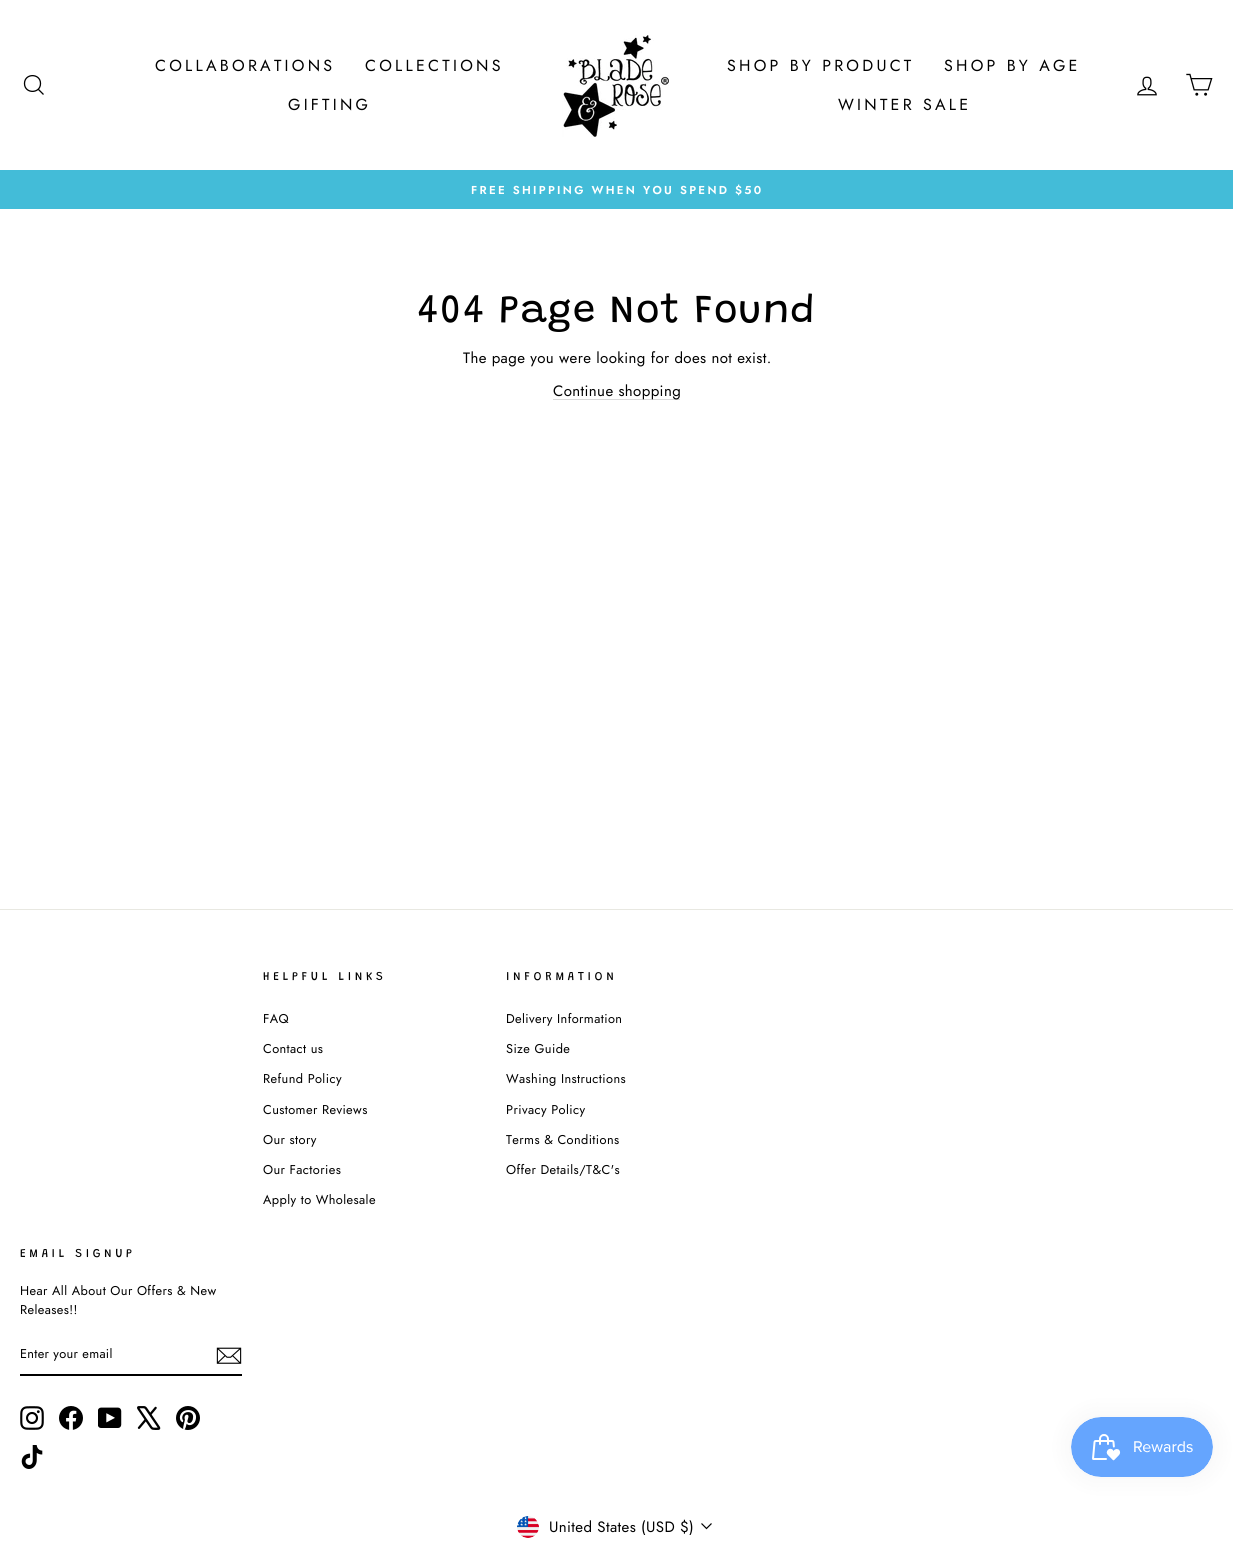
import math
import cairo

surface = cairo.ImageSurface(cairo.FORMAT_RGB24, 1233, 1557)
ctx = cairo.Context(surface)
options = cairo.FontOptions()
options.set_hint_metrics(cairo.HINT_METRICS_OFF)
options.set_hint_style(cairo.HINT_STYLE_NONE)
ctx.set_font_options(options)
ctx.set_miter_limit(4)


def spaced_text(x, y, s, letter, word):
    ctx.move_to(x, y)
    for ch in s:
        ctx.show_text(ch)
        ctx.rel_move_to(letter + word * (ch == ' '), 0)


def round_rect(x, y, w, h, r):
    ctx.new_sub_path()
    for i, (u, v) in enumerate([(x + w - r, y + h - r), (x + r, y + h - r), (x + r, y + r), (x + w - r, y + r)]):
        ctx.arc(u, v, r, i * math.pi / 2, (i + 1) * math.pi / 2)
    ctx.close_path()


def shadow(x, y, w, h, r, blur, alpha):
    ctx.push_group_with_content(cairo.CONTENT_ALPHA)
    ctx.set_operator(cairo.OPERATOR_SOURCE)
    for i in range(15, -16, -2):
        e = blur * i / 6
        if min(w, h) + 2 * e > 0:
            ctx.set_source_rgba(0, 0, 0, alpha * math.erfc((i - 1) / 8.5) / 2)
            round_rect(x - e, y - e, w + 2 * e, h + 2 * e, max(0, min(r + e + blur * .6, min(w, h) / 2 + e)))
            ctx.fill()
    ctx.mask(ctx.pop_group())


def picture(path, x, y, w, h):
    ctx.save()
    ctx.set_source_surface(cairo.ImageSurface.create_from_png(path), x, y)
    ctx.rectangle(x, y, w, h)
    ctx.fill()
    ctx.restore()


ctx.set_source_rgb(1, 1, 1)
ctx.paint()
ctx.new_path()
ctx.move_to(40.5, 83.5)
ctx.curve_to(40.5, 94, 24.5, 94, 24.5, 83.5)
ctx.curve_to(24.5, 73, 40.5, 73, 40.5, 83.5)
ctx.close_path()
ctx.move_to(43.5, 94.5)
ctx.line_to(38.5, 89.5)
ctx.set_source_rgb(0, 0, 0)
ctx.set_line_width(1.3)
ctx.stroke()
ctx.select_font_face("Jost")
ctx.set_font_size(16)
spaced_text(155, 71, "COLLABORATIONS", 3.25, 0)
spaced_text(365, 71, "COLLECTIONS", 3.25, 0)
spaced_text(288, 110, "GIFTING", 3.25, 0)
picture("img1.png", 562, 35, 107, 102)
spaced_text(727, 71, "SHOP BY PRODUCT", 3.25, 0)
spaced_text(944, 71, "SHOP BY AGE", 3.25, 0)
spaced_text(838, 110, "WINTER SALE", 3.25, 0)
picture("img2.png", 1137, 76, 20, 20)
picture("img3.png", 1186, 73, 27, 23)
ctx.set_source_rgb(0.263, 0.737, 0.847)
ctx.rectangle(0, 170, 1233, 39)
ctx.fill()
ctx.select_font_face("Jost SemiBold")
ctx.set_font_size(11.5)
ctx.set_source_rgb(1, 1, 1)
spaced_text(471, 194, "FREE SHIPPING WHEN YOU SPEND $50", 2.3, 0)
ctx.select_font_face("Grandstander")
ctx.set_font_size(40)
ctx.set_source_rgb(0, 0, 0)
spaced_text(417, 322, "404 Page Not Found", 1, 0)
ctx.select_font_face("Jost")
ctx.set_font_size(15)
spaced_text(463, 363, "The page you were looking for does not exist.", 0.4, 0)
ctx.set_source_rgb(0.851, 0.851, 0.851)
ctx.rectangle(553, 399, 127, 1)
ctx.fill()
ctx.set_source_rgb(0, 0, 0)
spaced_text(553, 396, "Continue shopping", 0.4, 0)
ctx.set_source_rgb(0.91, 0.91, 0.882)
ctx.rectangle(0, 909, 1233, 1)
ctx.fill()
ctx.select_font_face("Grandstander")
ctx.set_font_size(12)
ctx.set_source_rgb(0, 0, 0)
spaced_text(263, 980, "HELPFUL LINKS", 3.6, 0)
ctx.select_font_face("Jost")
ctx.set_font_size(12.75)
spaced_text(263, 1023, "FAQ", 0.4, 0)
spaced_text(263, 1053, "Contact us", 0.4, 0)
spaced_text(263, 1083, "Refund Policy", 0.4, 0)
spaced_text(263, 1114, "Customer Reviews", 0.4, 0)
spaced_text(263, 1144, "Our story", 0.4, 0)
spaced_text(263, 1174, "Our Factories", 0.4, 0)
spaced_text(263, 1204, "Apply to Wholesale", 0.4, 0)
ctx.select_font_face("Grandstander")
ctx.set_font_size(12)
spaced_text(506, 980, "INFORMATION", 3.6, 0)
ctx.select_font_face("Jost")
ctx.set_font_size(12.75)
spaced_text(506, 1023, "Delivery Information", 0.4, 0)
spaced_text(506, 1053, "Size Guide", 0.4, 0)
spaced_text(506, 1083, "Washing Instructions", 0.4, 0)
spaced_text(506, 1114, "Privacy Policy", 0.4, 0)
spaced_text(506, 1144, "Terms & Conditions", 0.4, 0)
spaced_text(506, 1174, "Offer Details/T&C's", 0.4, 0)
ctx.select_font_face("Grandstander")
ctx.set_font_size(12)
spaced_text(20, 1257, "EMAIL SIGNUP", 3.6, 0)
ctx.select_font_face("Jost")
ctx.set_font_size(12.75)
spaced_text(20, 1295, "Hear All About Our Offers & New", 0.4, 0)
spaced_text(20, 1314, "Releases!!", 0.4, 0)
ctx.rectangle(20, 1374, 222, 2)
ctx.fill()
spaced_text(20, 1358, "Enter your email", 0.3, 0)
picture("img4.png", 216, 1347, 26, 17)
picture("img5.png", 20, 1406, 24, 24)
picture("img6.png", 59, 1406, 24, 24)
picture("img7.png", 98, 1407, 24, 21)
picture("img8.png", 137, 1406, 24, 24)
picture("img9.png", 176, 1406, 24, 24)
picture("img10.png", 21, 1445, 22, 24)
picture("img11.png", 517, 1516, 22, 22)
ctx.set_font_size(15)
spaced_text(549, 1532, "United States (USD $)", 0.4, 0)
ctx.new_path()
ctx.move_to(701.5, 1523.5)
ctx.line_to(706.5, 1528.5)
ctx.line_to(711.5, 1523.5)
ctx.set_line_width(1.2)
ctx.stroke()
ctx.set_source_rgb(0, 0, 0)
shadow(1071, 1417, 142, 60, 30, 12.5, 0.05)
picture("img12.png", 1071, 1417, 142, 60)
surface.write_to_png("page.png")
